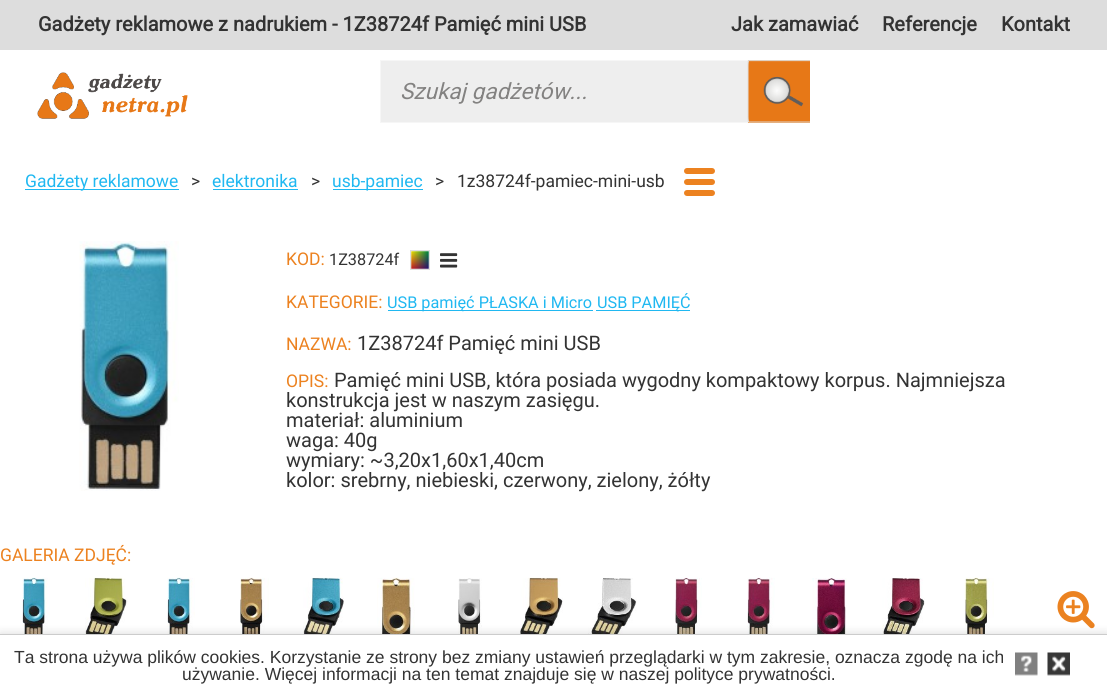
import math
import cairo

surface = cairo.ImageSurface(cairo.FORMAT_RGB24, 1107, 694)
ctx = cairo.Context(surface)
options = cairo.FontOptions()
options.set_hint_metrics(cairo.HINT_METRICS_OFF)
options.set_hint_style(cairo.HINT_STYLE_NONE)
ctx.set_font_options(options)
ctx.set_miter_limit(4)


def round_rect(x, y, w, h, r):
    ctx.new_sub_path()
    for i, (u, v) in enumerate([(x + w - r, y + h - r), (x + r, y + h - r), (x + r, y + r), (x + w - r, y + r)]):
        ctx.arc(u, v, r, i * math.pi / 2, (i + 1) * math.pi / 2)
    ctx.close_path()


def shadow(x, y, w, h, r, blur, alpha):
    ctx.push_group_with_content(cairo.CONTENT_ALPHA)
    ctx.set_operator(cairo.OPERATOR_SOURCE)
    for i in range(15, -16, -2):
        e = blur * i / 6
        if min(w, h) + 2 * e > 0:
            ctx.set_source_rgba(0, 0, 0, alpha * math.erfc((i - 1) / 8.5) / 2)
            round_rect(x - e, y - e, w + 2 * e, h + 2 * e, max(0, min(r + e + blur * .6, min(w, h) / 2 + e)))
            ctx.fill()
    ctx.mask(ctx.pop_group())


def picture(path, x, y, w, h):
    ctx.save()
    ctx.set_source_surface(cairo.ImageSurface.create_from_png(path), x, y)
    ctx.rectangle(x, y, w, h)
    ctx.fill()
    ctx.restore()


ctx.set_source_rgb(1, 1, 1)
ctx.paint()
ctx.set_source_rgb(0.867, 0.867, 0.867)
ctx.rectangle(0, 0, 1107, 50)
ctx.fill()
ctx.select_font_face("Roboto", cairo.FONT_SLANT_NORMAL, cairo.FONT_WEIGHT_BOLD)
ctx.set_font_size(20)
ctx.set_source_rgb(0.2, 0.2, 0.2)
ctx.move_to(38, 31)
ctx.show_text("Gadżety reklamowe z nadrukiem - 1Z38724f Pamięć mini USB")
ctx.move_to(731, 31)
ctx.show_text("Jak zamawiać")
ctx.move_to(882, 31)
ctx.show_text("Referencje")
ctx.move_to(1001, 31)
ctx.show_text("Kontakt")
picture("img1.png", 37, 72, 151, 47)
ctx.set_source_rgb(0.933, 0.933, 0.933)
ctx.rectangle(381, 61, 367, 61)
ctx.fill()
ctx.rectangle(380.5, 60.5, 374, 62)
ctx.set_source_rgb(0.961, 0.961, 0.961)
ctx.set_line_width(1)
ctx.stroke()
ctx.select_font_face("Roboto", cairo.FONT_SLANT_ITALIC)
ctx.set_font_size(22.5)
ctx.set_source_rgb(0.514, 0.51, 0.506)
ctx.move_to(400, 99)
ctx.show_text("Szukaj gadżetów...")
ctx.set_source_rgb(0.922, 0.51, 0.125)
ctx.rectangle(748, 60, 62, 63)
ctx.fill()
picture("img2.png", 747, 60, 63, 63)
ctx.set_source_rgb(0.125, 0.722, 0.945)
ctx.rectangle(25, 189, 154, 1)
ctx.fill()
ctx.select_font_face("Roboto")
ctx.set_font_size(17.5)
ctx.move_to(25, 187)
ctx.show_text("Gadżety reklamowe")
ctx.set_source_rgb(0.2, 0.2, 0.2)
ctx.move_to(191, 187)
ctx.show_text(">")
ctx.set_source_rgb(0.125, 0.722, 0.945)
ctx.move_to(212, 187)
ctx.show_text("elektronika")
ctx.rectangle(213, 189, 85, 1)
ctx.fill()
ctx.set_source_rgb(0.2, 0.2, 0.2)
ctx.move_to(311, 187)
ctx.show_text(">")
ctx.set_source_rgb(0.125, 0.722, 0.945)
ctx.rectangle(333, 189, 90, 1)
ctx.fill()
ctx.move_to(332, 187)
ctx.show_text("usb-pamiec")
ctx.set_source_rgb(0.2, 0.2, 0.2)
ctx.move_to(435, 187)
ctx.show_text(">")
ctx.move_to(457, 187)
ctx.show_text("1z38724f-pamiec-mini-usb")
ctx.set_source_rgb(0.922, 0.51, 0.125)
round_rect(684, 168, 31, 6, 3)
ctx.fill()
round_rect(684, 179, 31, 6, 3)
ctx.fill()
round_rect(684, 190, 31, 6, 3)
ctx.fill()
picture("img3.png", 79, 241, 100, 250)
ctx.rectangle(410.5, 250.5, 19, 19)
ctx.set_source_rgb(0.867, 0.867, 0.867)
ctx.stroke()
ctx.set_source_rgb(0.922, 0.51, 0.125)
ctx.move_to(286, 265)
ctx.show_text("KOD:")
ctx.set_font_size(16.25)
ctx.set_source_rgb(0.2, 0.2, 0.2)
ctx.move_to(329, 265)
ctx.show_text("1Z38724f")
picture("img4.png", 411, 251, 18, 18)
picture("img5.png", 440, 253, 18, 15)
ctx.set_font_size(17.5)
ctx.set_source_rgb(0.922, 0.51, 0.125)
ctx.move_to(286, 308)
ctx.show_text("KATEGORIE:")
ctx.set_source_rgb(0.125, 0.722, 0.945)
ctx.rectangle(388, 310, 205, 1)
ctx.fill()
ctx.set_font_size(16.25)
ctx.move_to(387, 308)
ctx.show_text("USB pamięć PŁASKA i Micro")
ctx.rectangle(596, 310, 94, 1)
ctx.fill()
ctx.move_to(597, 308)
ctx.show_text("USB PAMIĘĆ")
ctx.set_font_size(17.5)
ctx.set_source_rgb(0.922, 0.51, 0.125)
ctx.move_to(286, 350)
ctx.show_text("NAZWA:")
ctx.set_font_size(20)
ctx.set_source_rgb(0.2, 0.2, 0.2)
ctx.move_to(357, 350)
ctx.show_text("1Z38724f Pamięć mini USB")
ctx.set_font_size(17.5)
ctx.set_source_rgb(0.922, 0.51, 0.125)
ctx.move_to(286, 387)
ctx.show_text("OPIS:")
ctx.set_font_size(20)
ctx.set_source_rgb(0.2, 0.2, 0.2)
ctx.move_to(334, 387)
ctx.show_text("Pamięć mini USB, która posiada wygodny kompaktowy korpus. Najmniejsza")
ctx.move_to(286, 407)
ctx.show_text("konstrukcja jest w naszym zasięgu.")
ctx.move_to(286, 427)
ctx.show_text("materiał: aluminium")
ctx.move_to(286, 447)
ctx.show_text("waga: 40g")
ctx.move_to(286, 467)
ctx.show_text("wymiary: ~3,20x1,60x1,40cm")
ctx.move_to(286, 487)
ctx.show_text("kolor: srebrny, niebieski, czerwony, zielony, żółty")
ctx.set_font_size(17.5)
ctx.set_source_rgb(0.922, 0.51, 0.125)
ctx.move_to(0, 561)
ctx.show_text("GALERIA ZDJĘĆ:")
picture("img6.png", 22, 577, 28, 57)
picture("img7.png", 85, 577, 43, 57)
picture("img6.png", 167, 577, 28, 57)
picture("img8.png", 240, 577, 29, 57)
picture("img9.png", 303, 577, 41, 57)
picture("img10.png", 377, 577, 38, 57)
picture("img11.png", 458, 578, 24, 56)
picture("img12.png", 520, 577, 43, 57)
picture("img13.png", 588, 578, 49, 56)
picture("img14.png", 675, 577, 27, 57)
picture("img15.png", 747, 577, 28, 57)
picture("img16.png", 812, 578, 35, 56)
picture("img17.png", 882, 578, 43, 56)
picture("img18.png", 964, 577, 30, 57)
picture("img19.png", 1057, 591, 38, 38)
ctx.set_source_rgb(0, 0, 0)
shadow(0, 634, 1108, 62, 0, 5, 0.15)
ctx.set_source_rgb(1, 1, 1)
ctx.rectangle(0, 635, 1107, 59)
ctx.fill()
ctx.set_source_rgb(0.8, 0.8, 0.8)
ctx.rectangle(0, 634, 1107, 1)
ctx.fill()
ctx.select_font_face("Liberation Sans")
ctx.set_source_rgb(0.2, 0.2, 0.2)
ctx.move_to(14, 663)
ctx.show_text("Ta strona używa plików cookies. Korzystanie ze strony bez zmiany ustawień przeglądarki w tym zakresie, oznacza zgodę na ich")
ctx.move_to(182, 680)
ctx.show_text("używanie. Więcej informacji na ten temat znajduje się w naszej polityce prywatności.")
picture("img20.png", 1015, 652, 23, 24)
picture("img21.png", 1047, 652, 23, 24)
surface.write_to_png("page.png")
